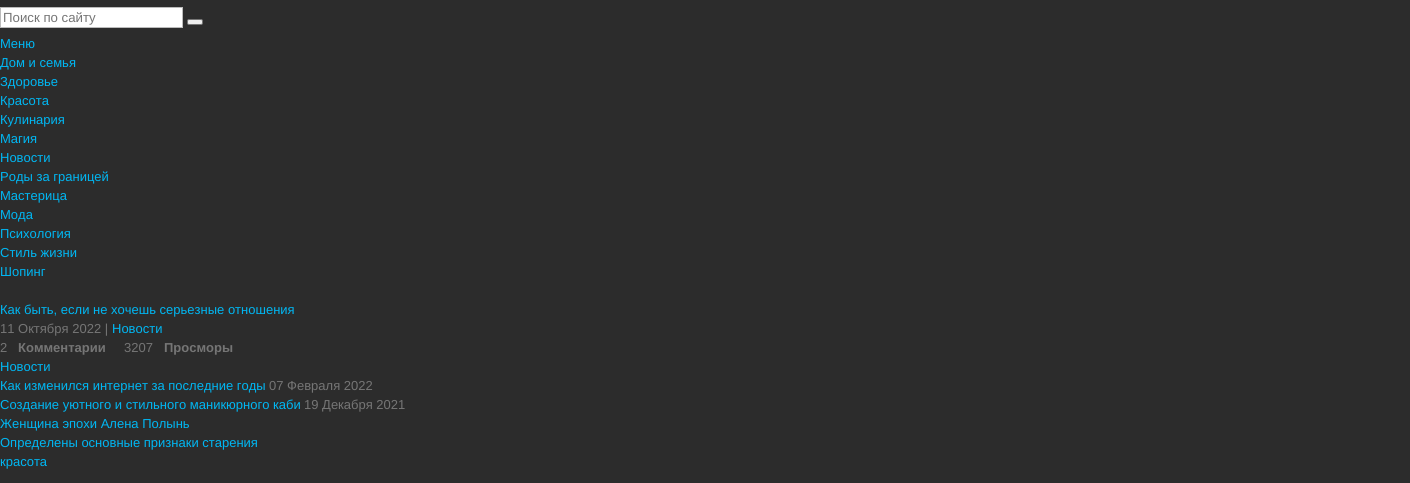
import math
import cairo

surface = cairo.ImageSurface(cairo.FORMAT_RGB24, 1410, 483)
ctx = cairo.Context(surface)
options = cairo.FontOptions()
options.set_hint_metrics(cairo.HINT_METRICS_OFF)
options.set_hint_style(cairo.HINT_STYLE_NONE)
ctx.set_font_options(options)
ctx.set_miter_limit(4)


def round_rect(x, y, w, h, r):
    ctx.new_sub_path()
    for i, (u, v) in enumerate([(x + w - r, y + h - r), (x + r, y + h - r), (x + r, y + r), (x + w - r, y + r)]):
        ctx.arc(u, v, r, i * math.pi / 2, (i + 1) * math.pi / 2)
    ctx.close_path()


ctx.set_source_rgb(0.173, 0.173, 0.173)
ctx.paint()
ctx.set_source_rgb(1, 1, 1)
ctx.rectangle(0.5, 7.5, 182, 20)
ctx.fill_preserve()
ctx.set_source_rgb(0.733, 0.733, 0.733)
ctx.set_line_width(1)
ctx.stroke()
ctx.select_font_face("Liberation Sans")
ctx.set_font_size(13.25)
ctx.set_source_rgb(0.459, 0.459, 0.459)
ctx.move_to(3, 22)
ctx.show_text("Поиск по сайту")
ctx.set_source_rgb(0.937, 0.937, 0.937)
round_rect(187.5, 19.5, 15, 5, 1.5)
ctx.fill_preserve()
ctx.set_source_rgb(0.463, 0.463, 0.463)
ctx.stroke()
ctx.set_font_size(13)
ctx.set_source_rgb(0, 0.718, 0.953)
ctx.move_to(0, 48)
ctx.show_text("Меню")
ctx.move_to(0, 67)
ctx.show_text("Дом и семья")
ctx.move_to(0, 86)
ctx.show_text("Здоровье")
ctx.move_to(0, 105)
ctx.show_text("Красота")
ctx.move_to(0, 124)
ctx.show_text("Кулинария")
ctx.move_to(0, 143)
ctx.show_text("Магия")
ctx.move_to(0, 162)
ctx.show_text("Новости")
ctx.move_to(0, 181)
ctx.show_text("Роды за границей")
ctx.move_to(0, 200)
ctx.show_text("Мастерица")
ctx.move_to(0, 219)
ctx.show_text("Мода")
ctx.move_to(0, 238)
ctx.show_text("Психология")
ctx.move_to(0, 257)
ctx.show_text("Стиль жизни")
ctx.move_to(0, 276)
ctx.show_text("Шопинг")
ctx.move_to(0, 314)
ctx.show_text("Как быть, если не хочешь серьезные отношения")
ctx.set_source_rgb(0.459, 0.459, 0.459)
ctx.move_to(0, 333)
ctx.show_text("11 Октября 2022 |")
ctx.set_source_rgb(0, 0.718, 0.953)
ctx.move_to(112, 333)
ctx.show_text("Новости")
ctx.set_source_rgb(0.459, 0.459, 0.459)
ctx.move_to(0, 352)
ctx.show_text("2")
ctx.select_font_face("Liberation Sans", cairo.FONT_SLANT_NORMAL, cairo.FONT_WEIGHT_BOLD)
ctx.move_to(18, 352)
ctx.show_text("Комментарии")
ctx.select_font_face("Liberation Sans")
ctx.move_to(124, 352)
ctx.show_text("3207")
ctx.select_font_face("Liberation Sans", cairo.FONT_SLANT_NORMAL, cairo.FONT_WEIGHT_BOLD)
ctx.move_to(164, 352)
ctx.show_text("Просморы")
ctx.select_font_face("Liberation Sans")
ctx.set_source_rgb(0, 0.718, 0.953)
ctx.move_to(0, 371)
ctx.show_text("Новости")
ctx.move_to(0, 390)
ctx.show_text("Как изменился интернет за последние годы")
ctx.set_source_rgb(0.459, 0.459, 0.459)
ctx.move_to(269, 390)
ctx.show_text("07 Февраля 2022")
ctx.set_source_rgb(0, 0.718, 0.953)
ctx.move_to(0, 409)
ctx.show_text("Создание уютного и стильного маникюрного каби")
ctx.set_source_rgb(0.459, 0.459, 0.459)
ctx.move_to(304, 409)
ctx.show_text("19 Декабря 2021")
ctx.set_source_rgb(0, 0.718, 0.953)
ctx.move_to(0, 428)
ctx.show_text("Женщина эпохи Алена Полынь")
ctx.move_to(0, 447)
ctx.show_text("Определены основные признаки старения")
ctx.move_to(0, 466)
ctx.show_text("красота")
surface.write_to_png("page.png")
